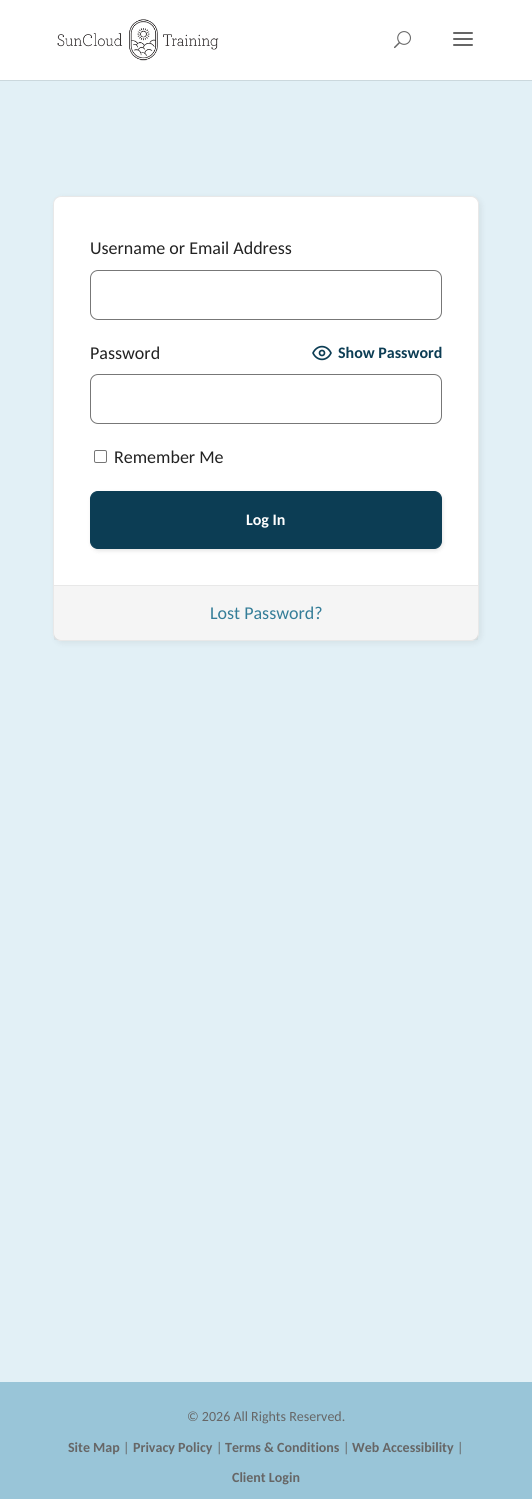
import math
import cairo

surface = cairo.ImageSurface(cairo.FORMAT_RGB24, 532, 1499)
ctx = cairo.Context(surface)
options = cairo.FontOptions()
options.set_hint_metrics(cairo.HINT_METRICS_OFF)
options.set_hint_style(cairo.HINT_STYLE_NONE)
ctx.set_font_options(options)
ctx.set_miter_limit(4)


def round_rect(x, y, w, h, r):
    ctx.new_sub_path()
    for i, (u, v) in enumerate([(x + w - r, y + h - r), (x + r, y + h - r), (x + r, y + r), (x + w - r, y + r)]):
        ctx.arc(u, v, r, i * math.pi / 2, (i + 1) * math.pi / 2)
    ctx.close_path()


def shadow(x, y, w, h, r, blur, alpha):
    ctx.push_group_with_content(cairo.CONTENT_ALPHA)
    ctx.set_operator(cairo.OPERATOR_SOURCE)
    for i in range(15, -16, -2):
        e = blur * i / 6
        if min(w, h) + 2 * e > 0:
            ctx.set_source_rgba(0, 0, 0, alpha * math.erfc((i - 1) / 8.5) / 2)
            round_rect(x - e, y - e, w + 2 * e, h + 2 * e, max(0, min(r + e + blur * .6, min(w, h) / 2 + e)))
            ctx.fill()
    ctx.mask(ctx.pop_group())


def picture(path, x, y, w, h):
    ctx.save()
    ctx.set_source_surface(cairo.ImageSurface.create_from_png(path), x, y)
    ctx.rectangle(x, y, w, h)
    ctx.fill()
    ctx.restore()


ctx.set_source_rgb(0.886, 0.941, 0.961)
ctx.paint()
ctx.set_source_rgb(0.796, 0.847, 0.867)
ctx.rectangle(0, 80, 532, 1)
ctx.fill()
ctx.set_source_rgb(1, 1, 1)
ctx.rectangle(0, 0, 532, 80)
ctx.fill()
picture("img1.png", 57, 19, 162, 42)
picture("img2.png", 394, 31, 17, 18)
picture("img3.png", 453, 32, 20, 14)
ctx.set_source_rgb(0, 0, 0)
shadow(55, 198, 426, 445, 8, 3.5, 0.07)
ctx.set_source_rgb(1, 1, 1)
round_rect(53.5, 196.5, 425, 444, 7.5)
ctx.fill_preserve()
ctx.set_source_rgb(0.91, 0.91, 0.91)
ctx.set_line_width(1)
ctx.stroke()
ctx.select_font_face("Carlito")
ctx.set_font_size(18)
ctx.set_source_rgb(0.133, 0.133, 0.133)
ctx.move_to(90, 254)
ctx.show_text("Username or Email Address")
round_rect(90.5, 270.5, 351, 49, 7.5)
ctx.set_source_rgb(0.467, 0.467, 0.467)
ctx.stroke()
ctx.set_source_rgb(0.133, 0.133, 0.133)
ctx.move_to(90, 359)
ctx.show_text("Password")
ctx.new_path()
ctx.move_to(313, 353)
ctx.curve_to(317, 344.5, 327, 344.5, 331, 353)
ctx.curve_to(327, 361.5, 317, 361.5, 313, 353)
ctx.close_path()
ctx.set_source_rgb(0.047, 0.239, 0.329)
ctx.set_line_width(1.7)
ctx.set_line_cap(cairo.LINE_CAP_ROUND)
ctx.set_line_join(cairo.LINE_JOIN_ROUND)
ctx.stroke()
ctx.arc(322, 353, 2.5, 0, 2 * math.pi)
ctx.set_line_cap(cairo.LINE_CAP_BUTT)
ctx.set_line_join(cairo.LINE_JOIN_MITER)
ctx.stroke()
ctx.select_font_face("Carlito", cairo.FONT_SLANT_NORMAL, cairo.FONT_WEIGHT_BOLD)
ctx.set_font_size(16)
ctx.move_to(338, 358)
ctx.show_text("Show Password")
round_rect(90.5, 374.5, 351, 49, 7.5)
ctx.set_source_rgb(0.467, 0.467, 0.467)
ctx.set_line_width(1)
ctx.stroke()
round_rect(94.5, 450.5, 12, 12, 1.5)
ctx.set_source_rgb(0.463, 0.463, 0.463)
ctx.stroke()
ctx.select_font_face("Carlito")
ctx.set_font_size(18)
ctx.set_source_rgb(0.133, 0.133, 0.133)
ctx.move_to(114, 463)
ctx.show_text("Remember Me")
ctx.set_source_rgb(0, 0, 0)
shadow(91, 493, 352, 58, 8, 2, 0.1)
ctx.set_source_rgb(0.047, 0.239, 0.329)
round_rect(90.5, 491.5, 351, 57, 7.5)
ctx.fill_preserve()
ctx.stroke()
ctx.select_font_face("Carlito", cairo.FONT_SLANT_NORMAL, cairo.FONT_WEIGHT_BOLD)
ctx.set_font_size(16)
ctx.set_source_rgb(1, 1, 1)
ctx.move_to(246, 525)
ctx.show_text("Log In")
ctx.set_source_rgba(0, 0, 0, 0.04)
ctx.rectangle(54, 586, 424, 54)
ctx.fill()
ctx.set_source_rgb(0.91, 0.91, 0.91)
ctx.rectangle(54, 585, 424, 1)
ctx.fill()
ctx.select_font_face("Carlito")
ctx.set_font_size(18)
ctx.set_source_rgb(0.204, 0.49, 0.596)
ctx.move_to(210, 619)
ctx.show_text("Lost Password?")
ctx.set_source_rgb(0.6, 0.773, 0.847)
ctx.rectangle(0, 1382, 532, 117)
ctx.fill()
ctx.set_font_size(14)
ctx.set_source_rgb(0.4, 0.4, 0.4)
ctx.move_to(187, 1421)
ctx.show_text("© 2026 All Rights Reserved.")
ctx.select_font_face("Carlito", cairo.FONT_SLANT_NORMAL, cairo.FONT_WEIGHT_BOLD)
ctx.move_to(68, 1452)
ctx.show_text("Site Map")
ctx.select_font_face("Carlito")
ctx.move_to(123, 1452)
ctx.show_text("|")
ctx.select_font_face("Carlito", cairo.FONT_SLANT_NORMAL, cairo.FONT_WEIGHT_BOLD)
ctx.move_to(133, 1452)
ctx.show_text("Privacy Policy")
ctx.select_font_face("Carlito")
ctx.move_to(216, 1452)
ctx.show_text("|")
ctx.select_font_face("Carlito", cairo.FONT_SLANT_NORMAL, cairo.FONT_WEIGHT_BOLD)
ctx.move_to(225, 1452)
ctx.show_text("Terms & Conditions")
ctx.select_font_face("Carlito")
ctx.move_to(343, 1452)
ctx.show_text("|")
ctx.select_font_face("Carlito", cairo.FONT_SLANT_NORMAL, cairo.FONT_WEIGHT_BOLD)
ctx.move_to(352, 1452)
ctx.show_text("Web Accessibility")
ctx.select_font_face("Carlito")
ctx.move_to(457, 1452)
ctx.show_text("|")
ctx.select_font_face("Carlito", cairo.FONT_SLANT_NORMAL, cairo.FONT_WEIGHT_BOLD)
ctx.move_to(232, 1482)
ctx.show_text("Client Login")
surface.write_to_png("page.png")
